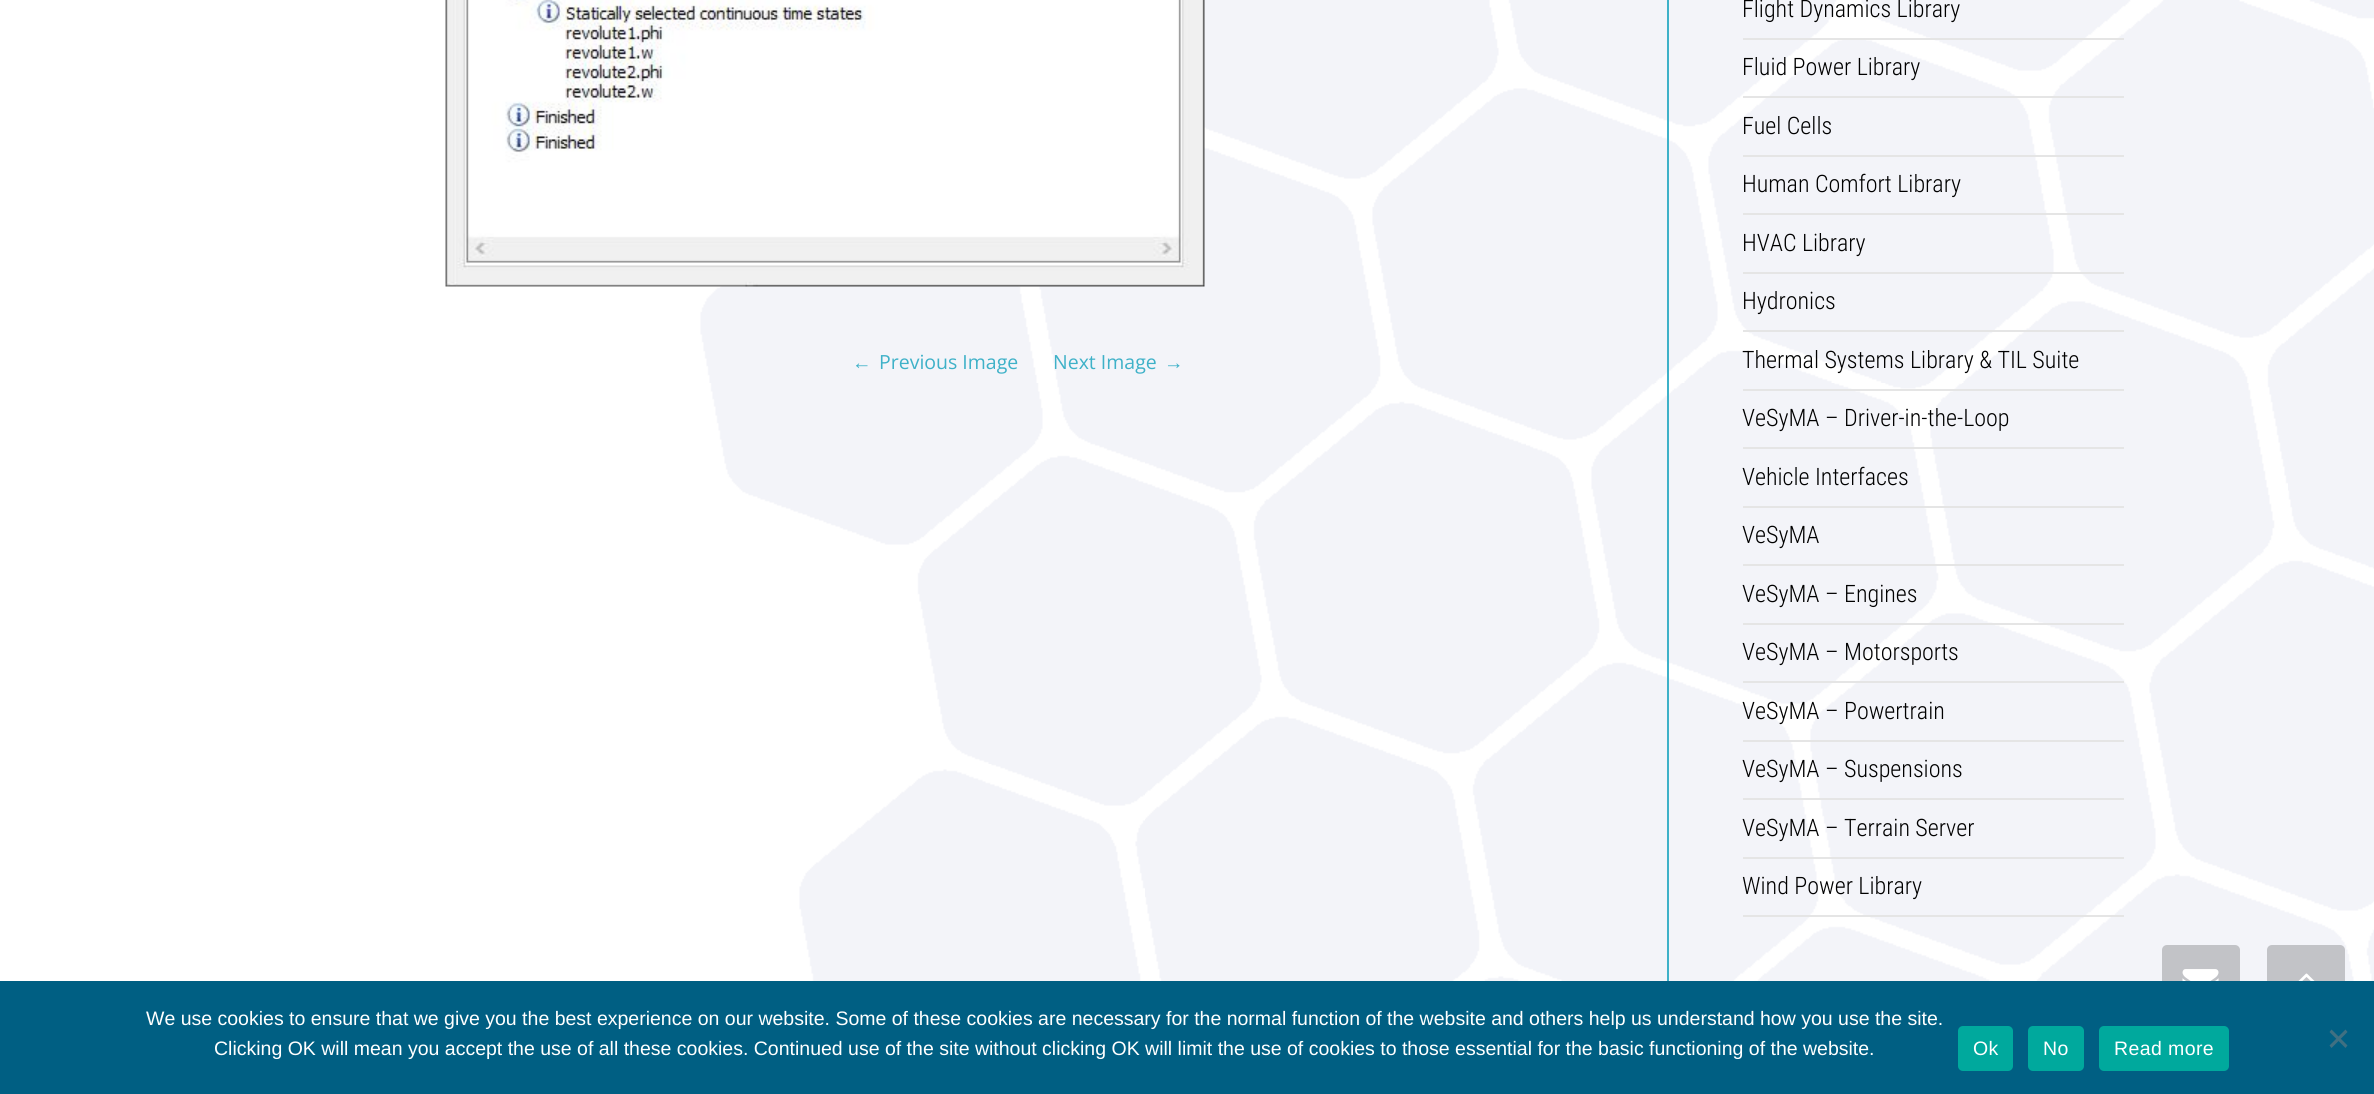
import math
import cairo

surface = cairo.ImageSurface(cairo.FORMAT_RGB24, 2374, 1094)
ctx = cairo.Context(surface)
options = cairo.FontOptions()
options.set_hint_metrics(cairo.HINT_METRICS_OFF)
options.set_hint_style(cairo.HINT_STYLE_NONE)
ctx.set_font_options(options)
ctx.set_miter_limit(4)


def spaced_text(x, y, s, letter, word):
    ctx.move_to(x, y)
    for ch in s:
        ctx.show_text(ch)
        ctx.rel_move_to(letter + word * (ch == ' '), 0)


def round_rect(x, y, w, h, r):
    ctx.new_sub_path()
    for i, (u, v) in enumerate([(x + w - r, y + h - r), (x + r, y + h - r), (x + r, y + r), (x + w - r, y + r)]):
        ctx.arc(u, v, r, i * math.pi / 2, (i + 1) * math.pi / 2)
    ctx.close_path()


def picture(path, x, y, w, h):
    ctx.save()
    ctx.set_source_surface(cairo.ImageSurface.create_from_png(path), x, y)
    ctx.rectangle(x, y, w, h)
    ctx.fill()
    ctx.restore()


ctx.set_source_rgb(1, 1, 1)
ctx.paint()
picture("img1.png", 700, 0, 1674, 981)
ctx.set_source_rgb(0.243, 0.694, 0.784)
ctx.rectangle(1667, 0, 2, 981)
ctx.fill()
picture("img2.png", 445, 0, 760, 287)
ctx.select_font_face("Liberation Serif")
ctx.set_font_size(19.5)
ctx.move_to(852, 369)
ctx.show_text("←")
ctx.select_font_face("Open Sans")
ctx.move_to(879, 369)
ctx.show_text("Previous Image")
ctx.move_to(1053, 369)
ctx.show_text("Next Image")
ctx.select_font_face("Liberation Serif")
ctx.move_to(1164, 369)
ctx.show_text("→")
ctx.set_source_rgb(0.898, 0.898, 0.898)
ctx.rectangle(1743, 38, 381, 2)
ctx.fill()
ctx.select_font_face("Roboto Condensed Light")
ctx.set_font_size(24)
ctx.set_source_rgb(0, 0, 0)
ctx.move_to(1742, 17)
ctx.show_text("Flight Dynamics Library")
ctx.set_source_rgb(0.898, 0.898, 0.898)
ctx.rectangle(1743, 96, 381, 2)
ctx.fill()
ctx.set_source_rgb(0, 0, 0)
ctx.move_to(1742, 75)
ctx.show_text("Fluid Power Library")
ctx.set_source_rgb(0.898, 0.898, 0.898)
ctx.rectangle(1743, 155, 381, 2)
ctx.fill()
ctx.set_source_rgb(0, 0, 0)
ctx.move_to(1742, 134)
ctx.show_text("Fuel Cells")
ctx.set_source_rgb(0.898, 0.898, 0.898)
ctx.rectangle(1743, 213, 381, 2)
ctx.fill()
ctx.set_source_rgb(0, 0, 0)
ctx.move_to(1742, 192)
ctx.show_text("Human Comfort Library")
ctx.set_source_rgb(0.898, 0.898, 0.898)
ctx.rectangle(1743, 272, 381, 2)
ctx.fill()
ctx.set_source_rgb(0, 0, 0)
ctx.move_to(1742, 251)
ctx.show_text("HVAC Library")
ctx.set_source_rgb(0.898, 0.898, 0.898)
ctx.rectangle(1743, 330, 381, 2)
ctx.fill()
ctx.set_source_rgb(0, 0, 0)
ctx.move_to(1742, 309)
ctx.show_text("Hydronics")
ctx.set_source_rgb(0.898, 0.898, 0.898)
ctx.rectangle(1743, 389, 381, 2)
ctx.fill()
ctx.set_source_rgb(0, 0, 0)
ctx.move_to(1742, 368)
ctx.show_text("Thermal Systems Library & TIL Suite")
ctx.set_source_rgb(0.898, 0.898, 0.898)
ctx.rectangle(1743, 447, 381, 2)
ctx.fill()
ctx.set_source_rgb(0, 0, 0)
ctx.move_to(1742, 426)
ctx.show_text("VeSyMA – Driver-in-the-Loop")
ctx.set_source_rgb(0.898, 0.898, 0.898)
ctx.rectangle(1743, 506, 381, 2)
ctx.fill()
ctx.set_source_rgb(0, 0, 0)
ctx.move_to(1742, 485)
ctx.show_text("Vehicle Interfaces")
ctx.set_source_rgb(0.898, 0.898, 0.898)
ctx.rectangle(1743, 564, 381, 2)
ctx.fill()
ctx.set_source_rgb(0, 0, 0)
ctx.move_to(1742, 543)
ctx.show_text("VeSyMA")
ctx.set_source_rgb(0.898, 0.898, 0.898)
ctx.rectangle(1743, 623, 381, 2)
ctx.fill()
ctx.set_source_rgb(0, 0, 0)
ctx.move_to(1742, 602)
ctx.show_text("VeSyMA – Engines")
ctx.set_source_rgb(0.898, 0.898, 0.898)
ctx.rectangle(1743, 681, 381, 2)
ctx.fill()
ctx.set_source_rgb(0, 0, 0)
ctx.move_to(1742, 660)
ctx.show_text("VeSyMA – Motorsports")
ctx.set_source_rgb(0.898, 0.898, 0.898)
ctx.rectangle(1743, 740, 381, 2)
ctx.fill()
ctx.set_source_rgb(0, 0, 0)
ctx.move_to(1742, 719)
ctx.show_text("VeSyMA – Powertrain")
ctx.set_source_rgb(0.898, 0.898, 0.898)
ctx.rectangle(1743, 798, 381, 2)
ctx.fill()
ctx.set_source_rgb(0, 0, 0)
ctx.move_to(1742, 777)
ctx.show_text("VeSyMA – Suspensions")
ctx.set_source_rgb(0.898, 0.898, 0.898)
ctx.rectangle(1743, 857, 381, 2)
ctx.fill()
ctx.set_source_rgb(0, 0, 0)
ctx.move_to(1742, 836)
ctx.show_text("VeSyMA – Terrain Server")
ctx.set_source_rgb(0.898, 0.898, 0.898)
ctx.rectangle(1743, 915, 381, 2)
ctx.fill()
ctx.set_source_rgb(0, 0, 0)
ctx.move_to(1742, 894)
ctx.show_text("Wind Power Library")
ctx.set_source_rgb(0.761, 0.765, 0.78)
round_rect(2162, 945, 78, 75, 5)
ctx.fill()
picture("img3.png", 2182, 969, 37, 12)
round_rect(2267, 945, 78, 75, 5)
ctx.fill()
picture("img4.png", 2298, 973, 17, 8)
ctx.set_source_rgb(0, 0.373, 0.514)
ctx.rectangle(0, 981, 2374, 113)
ctx.fill()
ctx.select_font_face("Liberation Sans")
ctx.set_font_size(19.5)
ctx.set_source_rgb(1, 1, 1)
ctx.move_to(146, 1025)
ctx.show_text("We use cookies to ensure that we give you the best experience on our website. Some of these cookies are necessary for the normal function of the website and others help us understand how you use the site.")
ctx.move_to(214, 1055)
ctx.show_text("Clicking OK will mean you accept the use of all these cookies. Continued use of the site without clicking OK will limit the use of cookies to those essential for the basic functioning of the website.")
ctx.set_source_rgb(0, 0.663, 0.616)
round_rect(1958, 1026, 55, 45, 5)
ctx.fill()
ctx.set_source_rgb(1, 1, 1)
spaced_text(1973, 1055, "Ok", 0.4, 0)
ctx.set_source_rgb(0, 0.663, 0.616)
round_rect(2028, 1026, 56, 45, 5)
ctx.fill()
ctx.set_source_rgb(1, 1, 1)
spaced_text(2043, 1055, "No", 0.4, 0)
ctx.set_source_rgb(0, 0.663, 0.616)
round_rect(2099, 1026, 130, 45, 5)
ctx.fill()
ctx.set_source_rgb(1, 1, 1)
spaced_text(2114, 1055, "Read more", 0.4, 0)
ctx.set_source_rgb(0.251, 0.439, 0.51)
ctx.new_path()
ctx.move_to(2345.5, 1029.5)
ctx.line_to(2347.5, 1032)
ctx.line_to(2331.5, 1048)
ctx.line_to(2329.5, 1045.5)
ctx.close_path()
ctx.fill()
ctx.new_path()
ctx.move_to(2329.5, 1032)
ctx.line_to(2331.5, 1029.5)
ctx.line_to(2347.5, 1045.5)
ctx.line_to(2345.5, 1048)
ctx.close_path()
ctx.fill()
surface.write_to_png("page.png")
